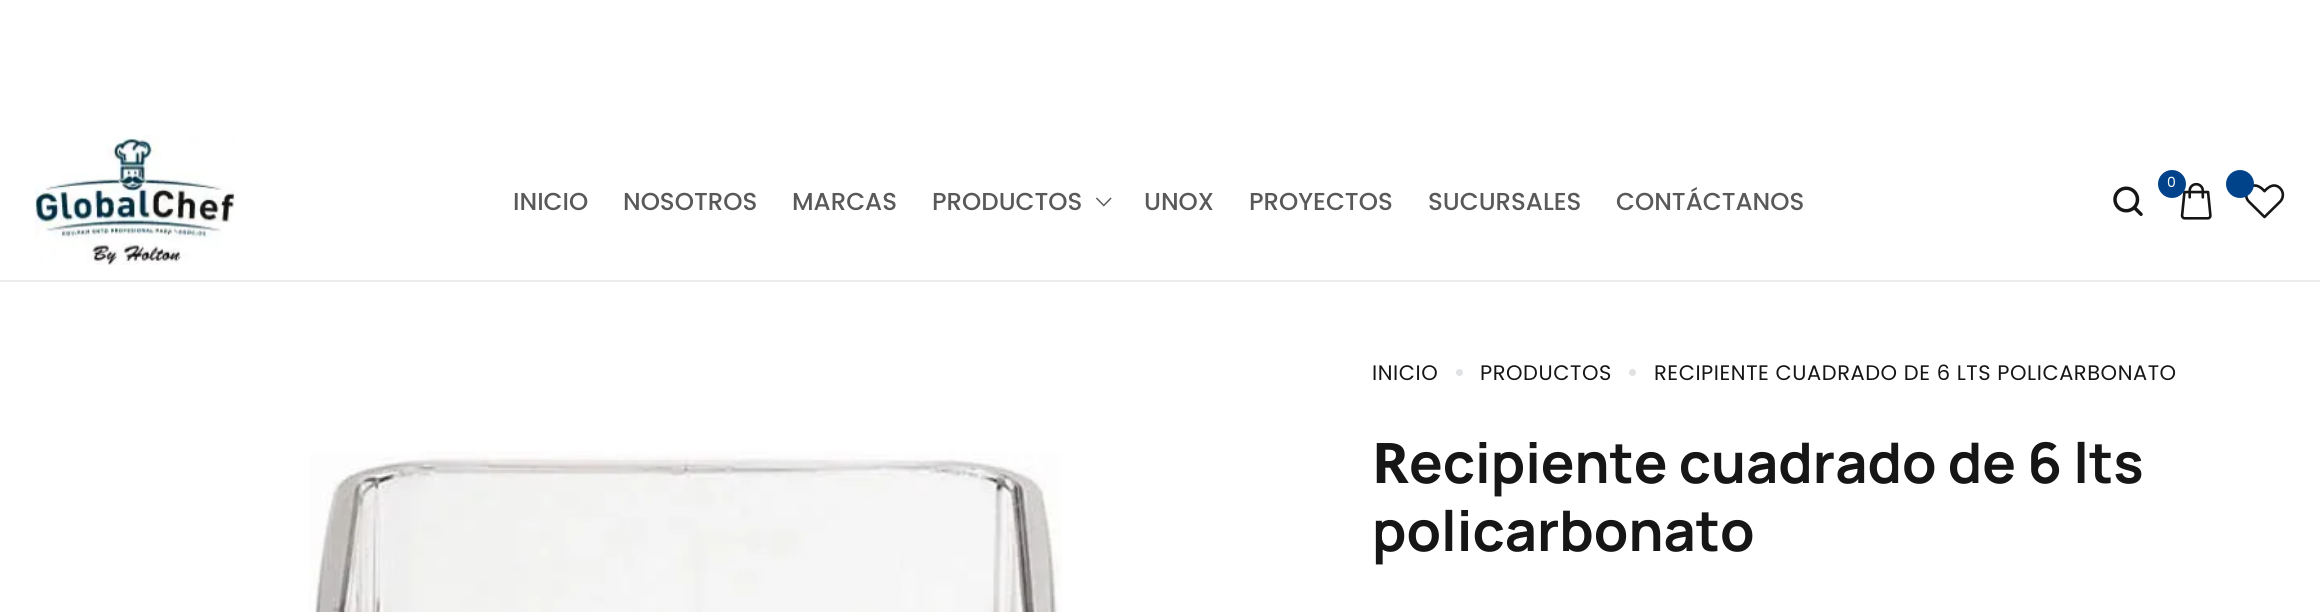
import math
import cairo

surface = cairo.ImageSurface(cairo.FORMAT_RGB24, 2320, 612)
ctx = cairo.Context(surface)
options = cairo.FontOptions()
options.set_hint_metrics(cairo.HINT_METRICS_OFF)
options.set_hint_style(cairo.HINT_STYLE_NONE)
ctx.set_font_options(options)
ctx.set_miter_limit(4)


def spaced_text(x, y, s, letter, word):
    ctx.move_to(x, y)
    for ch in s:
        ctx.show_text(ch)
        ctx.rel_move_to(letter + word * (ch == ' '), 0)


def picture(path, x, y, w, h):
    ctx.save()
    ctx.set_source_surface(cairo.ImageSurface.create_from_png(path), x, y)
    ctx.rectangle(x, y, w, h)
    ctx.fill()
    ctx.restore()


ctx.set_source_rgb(1, 1, 1)
ctx.paint()
ctx.set_source_rgb(0.918, 0.922, 0.929)
ctx.rectangle(0, 280, 2320, 2)
ctx.fill()
picture("img1.png", 35, 135, 201, 130)
picture("img2.png", 2180, 182, 32, 38)
ctx.set_source_rgb(0, 0.263, 0.545)
ctx.arc(2172, 184, 14, 0, 2 * math.pi)
ctx.fill()
ctx.select_font_face("Poppins")
ctx.set_font_size(14)
ctx.set_source_rgb(1, 1, 1)
ctx.move_to(2167, 187)
ctx.show_text("0")
picture("img3.png", 2245, 184, 40, 35)
ctx.set_source_rgb(0, 0.263, 0.545)
ctx.arc(2240, 184, 14, 0, 2 * math.pi)
ctx.fill()
picture("img4.png", 2113, 186, 30, 30)
ctx.select_font_face("Poppins Medium")
ctx.set_font_size(24.5)
ctx.set_source_rgb(0.349, 0.349, 0.349)
ctx.move_to(513, 210)
ctx.show_text("INICIO")
ctx.move_to(623, 210)
ctx.show_text("NOSOTROS")
ctx.move_to(792, 210)
ctx.show_text("MARCAS")
ctx.move_to(932, 210)
ctx.show_text("PRODUCTOS")
picture("img5.png", 1096, 197, 16, 10)
ctx.move_to(1144, 210)
ctx.show_text("UNOX")
ctx.move_to(1249, 210)
ctx.show_text("PROYECTOS")
ctx.move_to(1428, 210)
ctx.show_text("SUCURSALES")
ctx.move_to(1616, 210)
ctx.show_text("CONTÁCTANOS")
picture("img6.png", 309, 451, 753, 161)
ctx.select_font_face("Poppins")
ctx.set_font_size(21)
ctx.set_source_rgb(0.086, 0.086, 0.086)
spaced_text(1372, 380, "INICIO", 0.55, 0)
ctx.set_source_rgb(0.882, 0.886, 0.89)
ctx.new_path()
ctx.arc(1459.5, 372.5, 3.5, 0, 2 * math.pi)
ctx.fill()
ctx.set_source_rgb(0.086, 0.086, 0.086)
spaced_text(1480, 380, "PRODUCTOS", 0.55, 0)
ctx.set_source_rgb(0.882, 0.886, 0.89)
ctx.new_path()
ctx.arc(1632.5, 372.5, 3.5, 0, 2 * math.pi)
ctx.fill()
ctx.set_source_rgb(0.086, 0.086, 0.086)
spaced_text(1654, 380, "RECIPIENTE CUADRADO DE 6 LTS POLICARBONATO", 0.55, 0)
ctx.select_font_face("Noto Sans", cairo.FONT_SLANT_NORMAL, cairo.FONT_WEIGHT_BOLD)
ctx.set_font_size(56)
ctx.move_to(1372, 483)
ctx.show_text("R")
ctx.select_font_face("Manrope", cairo.FONT_SLANT_NORMAL, cairo.FONT_WEIGHT_BOLD)
ctx.move_to(1409, 483)
ctx.show_text("ecipiente cuadrado de 6 lts")
ctx.move_to(1372, 551)
ctx.show_text("policarbonato")
surface.write_to_png("page.png")
